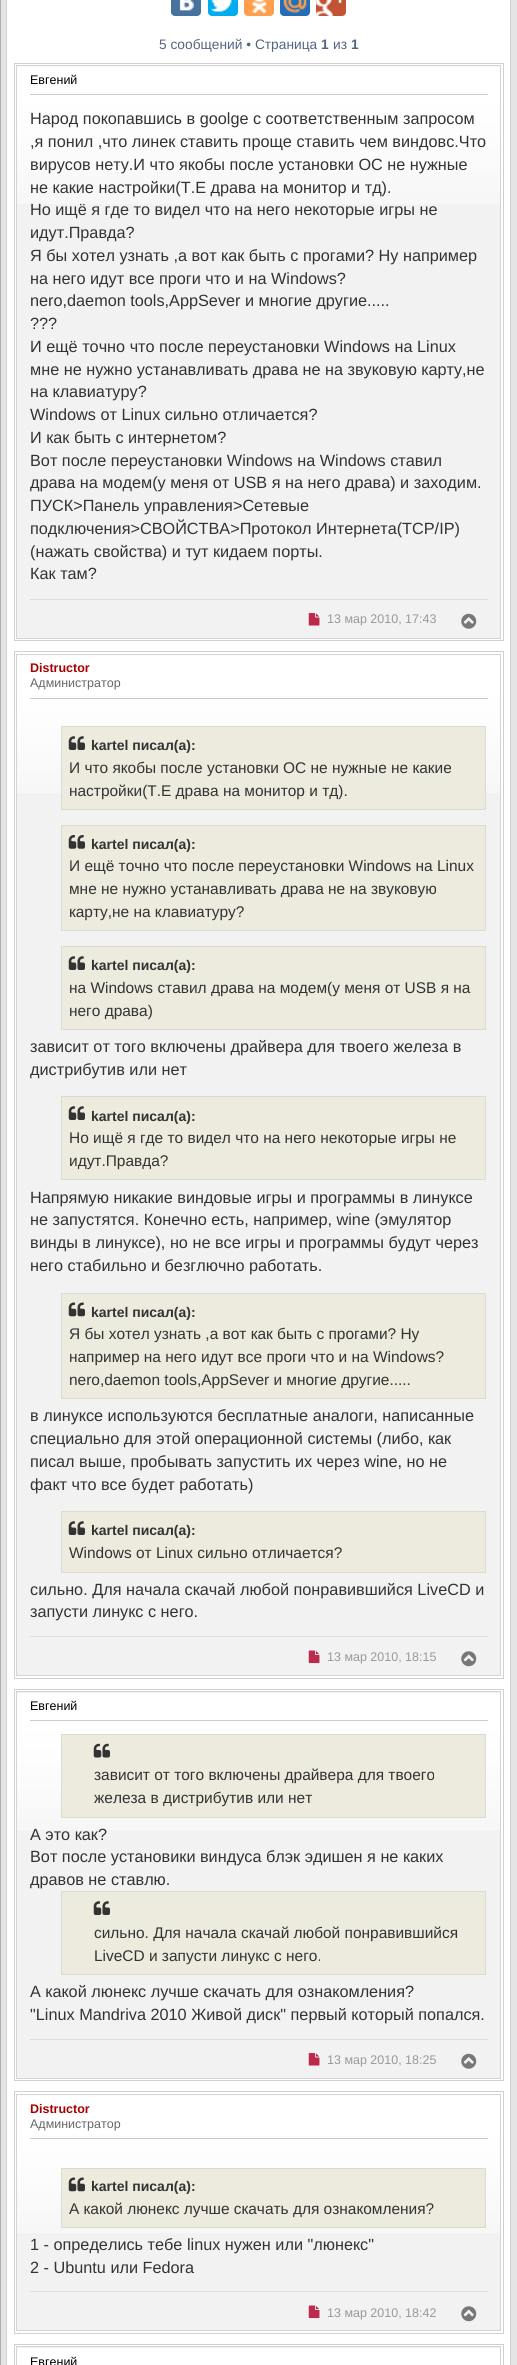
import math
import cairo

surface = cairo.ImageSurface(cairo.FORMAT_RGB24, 517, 2365)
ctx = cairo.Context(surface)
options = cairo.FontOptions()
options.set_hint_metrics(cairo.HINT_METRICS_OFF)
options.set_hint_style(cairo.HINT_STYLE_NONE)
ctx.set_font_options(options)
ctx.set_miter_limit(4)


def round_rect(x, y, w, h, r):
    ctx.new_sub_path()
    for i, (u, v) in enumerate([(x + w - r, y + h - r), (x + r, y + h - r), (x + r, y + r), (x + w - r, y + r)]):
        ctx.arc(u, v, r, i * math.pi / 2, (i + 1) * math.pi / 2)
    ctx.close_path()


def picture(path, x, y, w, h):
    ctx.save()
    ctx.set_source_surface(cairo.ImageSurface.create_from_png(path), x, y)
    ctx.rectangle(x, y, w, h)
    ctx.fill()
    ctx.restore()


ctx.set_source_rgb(0.898, 0.898, 0.898)
ctx.paint()
ctx.rectangle(0.5, -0.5, 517, 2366)
ctx.set_source_rgb(0.678, 0.678, 0.678)
ctx.set_line_width(1)
ctx.stroke()
ctx.set_source_rgb(1, 1, 1)
ctx.rectangle(6.5, -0.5, 504, 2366)
ctx.fill_preserve()
ctx.set_source_rgb(0.827, 0.827, 0.827)
ctx.stroke()
ctx.set_source_rgb(0.282, 0.447, 0.62)
round_rect(171, -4, 30, 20, 4)
ctx.fill()
picture("img1.png", 179, 0, 15, 11)
ctx.set_source_rgb(0, 0.675, 0.929)
round_rect(208, -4, 30, 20, 4)
ctx.fill()
picture("img2.png", 211, 0, 22, 12)
ctx.set_source_rgb(1, 0.624, 0.302)
round_rect(244, -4, 30, 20, 4)
ctx.fill()
picture("img3.png", 252, 0, 15, 13)
ctx.set_source_rgb(0.133, 0.431, 0.718)
round_rect(280, -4, 30, 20, 4)
ctx.fill()
picture("img4.png", 283, 0, 24, 13)
ctx.set_source_rgb(0.761, 0.322, 0.204)
round_rect(316, -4, 30, 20, 4)
ctx.fill()
picture("img5.png", 316, 0, 26, 16)
ctx.select_font_face("Liberation Sans")
ctx.set_font_size(13.75)
ctx.set_source_rgb(0.325, 0.392, 0.51)
ctx.move_to(159, 49)
ctx.show_text("5 сообщений • Страница")
ctx.select_font_face("Liberation Sans", cairo.FONT_SLANT_NORMAL, cairo.FONT_WEIGHT_BOLD)
ctx.move_to(321, 49)
ctx.show_text("1")
ctx.select_font_face("Liberation Sans")
ctx.move_to(333, 49)
ctx.show_text("из")
ctx.select_font_face("Liberation Sans", cairo.FONT_SLANT_NORMAL, cairo.FONT_WEIGHT_BOLD)
ctx.move_to(351, 49)
ctx.show_text("1")
ctx.rectangle(14.5, 63.5, 489, 577)
ctx.set_source_rgb(0.816, 0.816, 0.816)
ctx.stroke()
ctx.set_source_rgb(0.949, 0.949, 0.949)
ctx.rectangle(17, 66, 483, 572)
ctx.fill()
picture("img6.png", 17, 66, 483, 138)
ctx.rectangle(16.5, 65.5, 484, 573)
ctx.set_source_rgb(0.831, 0.831, 0.831)
ctx.stroke()
ctx.set_source_rgb(0.8, 0.8, 0.8)
ctx.rectangle(30, 94, 458, 1)
ctx.fill()
ctx.select_font_face("Liberation Sans")
ctx.set_font_size(12.5)
ctx.set_source_rgb(0, 0, 0)
ctx.move_to(30, 84)
ctx.show_text("Евгений")
ctx.set_font_size(16.25)
ctx.set_source_rgb(0.2, 0.2, 0.2)
ctx.move_to(30, 124)
ctx.show_text("Народ покопавшись в goolge с соответственным запросом")
ctx.move_to(30, 147)
ctx.show_text(",я понил ,что линек ставить проще ставить чем виндовс.Что")
ctx.move_to(30, 170)
ctx.show_text("вирусов нету.И что якобы после установки OC не нужные")
ctx.move_to(30, 193)
ctx.show_text("не какие настройки(Т.Е драва на монитор и тд).")
ctx.move_to(30, 215)
ctx.show_text("Но ищё я где то видел что на него некоторые игры не")
ctx.move_to(30, 238)
ctx.show_text("идут.Правда?")
ctx.move_to(30, 261)
ctx.show_text("Я бы хотел узнать ,а вот как быть с прогами? Ну например")
ctx.move_to(30, 284)
ctx.show_text("на него идут все проги что и на Windows?")
ctx.move_to(30, 306)
ctx.show_text("nero,daemon tools,AppSever и многие другие.....")
ctx.move_to(30, 329)
ctx.show_text("???")
ctx.move_to(30, 352)
ctx.show_text("И ещё точно что после переустановки Windows на Linux")
ctx.move_to(30, 375)
ctx.show_text("мне не нужно устанавливать драва не на звуковую карту,не")
ctx.move_to(30, 397)
ctx.show_text("на клавиатуру?")
ctx.move_to(30, 420)
ctx.show_text("Windows от Linux сильно отличается?")
ctx.move_to(30, 443)
ctx.show_text("И как быть с интернетом?")
ctx.move_to(30, 466)
ctx.show_text("Вот после переустановки Windows на Windows ставил")
ctx.move_to(30, 488)
ctx.show_text("драва на модем(у меня от USB я на него драва) и заходим.")
ctx.move_to(30, 511)
ctx.show_text("ПУСК>Панель управления>Сетевые")
ctx.move_to(30, 534)
ctx.show_text("подключения>СВОЙСТВА>Протокол Интернета(TCP/IP)")
ctx.move_to(30, 557)
ctx.show_text("(нажать свойства) и тут кидаем порты.")
ctx.move_to(30, 579)
ctx.show_text("Как там?")
ctx.set_source_rgb(0.867, 0.867, 0.867)
ctx.rectangle(30, 599, 458, 1)
ctx.fill()
picture("img7.png", 308, 613, 12, 13)
ctx.set_font_size(12.5)
ctx.set_source_rgb(0.6, 0.6, 0.6)
ctx.move_to(327, 623)
ctx.show_text("13 мар 2010, 17:43")
picture("img8.png", 461, 613, 16, 16)
ctx.rectangle(14.5, 651.5, 489, 1027)
ctx.set_source_rgb(0.816, 0.816, 0.816)
ctx.stroke()
ctx.set_source_rgb(0.949, 0.949, 0.949)
ctx.rectangle(17, 655, 483, 1020)
ctx.fill()
picture("img9.png", 17, 655, 483, 138)
ctx.rectangle(16.5, 654.5, 484, 1021)
ctx.set_source_rgb(0.831, 0.831, 0.831)
ctx.stroke()
ctx.set_source_rgb(0.8, 0.8, 0.8)
ctx.rectangle(30, 698, 458, 1)
ctx.fill()
ctx.select_font_face("Liberation Sans", cairo.FONT_SLANT_NORMAL, cairo.FONT_WEIGHT_BOLD)
ctx.set_source_rgb(0.667, 0, 0)
ctx.move_to(30, 672)
ctx.show_text("Distructor")
ctx.select_font_face("Liberation Sans")
ctx.set_source_rgb(0.4, 0.4, 0.4)
ctx.move_to(30, 687)
ctx.show_text("Администратор")
ctx.set_source_rgb(0.922, 0.918, 0.867)
ctx.rectangle(61.5, 726.5, 424, 83)
ctx.fill_preserve()
ctx.set_source_rgb(0.859, 0.859, 0.808)
ctx.stroke()
picture("img10.png", 68, 736, 17, 14)
ctx.select_font_face("Liberation Sans", cairo.FONT_SLANT_NORMAL, cairo.FONT_WEIGHT_BOLD)
ctx.set_font_size(14)
ctx.set_source_rgb(0.2, 0.2, 0.2)
ctx.move_to(91, 750)
ctx.show_text("kartel писал(а):")
ctx.select_font_face("Liberation Sans")
ctx.set_font_size(15.45)
ctx.move_to(69, 773)
ctx.show_text("И что якобы после установки OC не нужные не какие")
ctx.move_to(69, 796)
ctx.show_text("настройки(Т.Е драва на монитор и тд).")
ctx.set_source_rgb(0.922, 0.918, 0.867)
ctx.rectangle(61.5, 825.5, 424, 105)
ctx.fill_preserve()
ctx.set_source_rgb(0.859, 0.859, 0.808)
ctx.stroke()
picture("img11.png", 68, 835, 17, 14)
ctx.select_font_face("Liberation Sans", cairo.FONT_SLANT_NORMAL, cairo.FONT_WEIGHT_BOLD)
ctx.set_font_size(14)
ctx.set_source_rgb(0.2, 0.2, 0.2)
ctx.move_to(91, 849)
ctx.show_text("kartel писал(а):")
ctx.select_font_face("Liberation Sans")
ctx.set_font_size(15.45)
ctx.move_to(69, 871)
ctx.show_text("И ещё точно что после переустановки Windows на Linux")
ctx.move_to(69, 894)
ctx.show_text("мне не нужно устанавливать драва не на звуковую")
ctx.move_to(69, 917)
ctx.show_text("карту,не на клавиатуру?")
ctx.set_source_rgb(0.922, 0.918, 0.867)
ctx.rectangle(61.5, 946.5, 424, 83)
ctx.fill_preserve()
ctx.set_source_rgb(0.859, 0.859, 0.808)
ctx.stroke()
picture("img10.png", 68, 956, 17, 14)
ctx.select_font_face("Liberation Sans", cairo.FONT_SLANT_NORMAL, cairo.FONT_WEIGHT_BOLD)
ctx.set_font_size(14)
ctx.set_source_rgb(0.2, 0.2, 0.2)
ctx.move_to(91, 970)
ctx.show_text("kartel писал(а):")
ctx.select_font_face("Liberation Sans")
ctx.set_font_size(15.45)
ctx.move_to(69, 993)
ctx.show_text("на Windows ставил драва на модем(у меня от USB я на")
ctx.move_to(69, 1016)
ctx.show_text("него драва)")
ctx.set_font_size(16.25)
ctx.move_to(30, 1052)
ctx.show_text("зависит от того включены драйвера для твоего железа в")
ctx.move_to(30, 1075)
ctx.show_text("дистрибутив или нет")
ctx.set_source_rgb(0.922, 0.918, 0.867)
ctx.rectangle(61.5, 1096.5, 424, 83)
ctx.fill_preserve()
ctx.set_source_rgb(0.859, 0.859, 0.808)
ctx.stroke()
picture("img10.png", 68, 1106, 17, 14)
ctx.select_font_face("Liberation Sans", cairo.FONT_SLANT_NORMAL, cairo.FONT_WEIGHT_BOLD)
ctx.set_font_size(14)
ctx.set_source_rgb(0.2, 0.2, 0.2)
ctx.move_to(91, 1121)
ctx.show_text("kartel писал(а):")
ctx.select_font_face("Liberation Sans")
ctx.set_font_size(15.45)
ctx.move_to(69, 1143)
ctx.show_text("Но ищё я где то видел что на него некоторые игры не")
ctx.move_to(69, 1166)
ctx.show_text("идут.Правда?")
ctx.set_font_size(16.25)
ctx.move_to(30, 1203)
ctx.show_text("Напрямую никакие виндовые игры и программы в линуксе")
ctx.move_to(30, 1225)
ctx.show_text("не запустятся. Конечно есть, например, wine (эмулятор")
ctx.move_to(30, 1248)
ctx.show_text("винды в линуксе), но не все игры и программы будут через")
ctx.move_to(30, 1271)
ctx.show_text("него стабильно и безглючно работать.")
ctx.set_source_rgb(0.922, 0.918, 0.867)
ctx.rectangle(61.5, 1293.5, 424, 105)
ctx.fill_preserve()
ctx.set_source_rgb(0.859, 0.859, 0.808)
ctx.stroke()
picture("img12.png", 68, 1302, 17, 15)
ctx.select_font_face("Liberation Sans", cairo.FONT_SLANT_NORMAL, cairo.FONT_WEIGHT_BOLD)
ctx.set_font_size(14)
ctx.set_source_rgb(0.2, 0.2, 0.2)
ctx.move_to(91, 1317)
ctx.show_text("kartel писал(а):")
ctx.select_font_face("Liberation Sans")
ctx.set_font_size(15.45)
ctx.move_to(69, 1339)
ctx.show_text("Я бы хотел узнать ,а вот как быть с прогами? Ну")
ctx.move_to(69, 1362)
ctx.show_text("например на него идут все проги что и на Windows?")
ctx.move_to(69, 1385)
ctx.show_text("nero,daemon tools,AppSever и многие другие.....")
ctx.set_font_size(16.25)
ctx.move_to(30, 1421)
ctx.show_text("в линуксе используются бесплатные аналоги, написанные")
ctx.move_to(30, 1444)
ctx.show_text("специально для этой операционной системы (либо, как")
ctx.move_to(30, 1467)
ctx.show_text("писал выше, пробывать запустить их через wine, но не")
ctx.move_to(30, 1490)
ctx.show_text("факт что все будет работать)")
ctx.set_source_rgb(0.922, 0.918, 0.867)
ctx.rectangle(61.5, 1511.5, 424, 61)
ctx.fill_preserve()
ctx.set_source_rgb(0.859, 0.859, 0.808)
ctx.stroke()
picture("img10.png", 68, 1521, 17, 14)
ctx.select_font_face("Liberation Sans", cairo.FONT_SLANT_NORMAL, cairo.FONT_WEIGHT_BOLD)
ctx.set_font_size(14)
ctx.set_source_rgb(0.2, 0.2, 0.2)
ctx.move_to(91, 1535)
ctx.show_text("kartel писал(а):")
ctx.select_font_face("Liberation Sans")
ctx.set_font_size(15.45)
ctx.move_to(69, 1558)
ctx.show_text("Windows от Linux сильно отличается?")
ctx.set_font_size(16.25)
ctx.move_to(30, 1595)
ctx.show_text("сильно. Для начала скачай любой понравившийся LiveCD и")
ctx.move_to(30, 1617)
ctx.show_text("запусти линукс с него.")
ctx.set_source_rgb(0.867, 0.867, 0.867)
ctx.rectangle(30, 1636, 458, 1)
ctx.fill()
picture("img13.png", 308, 1650, 12, 14)
ctx.set_font_size(12.5)
ctx.set_source_rgb(0.6, 0.6, 0.6)
ctx.move_to(327, 1661)
ctx.show_text("13 мар 2010, 18:15")
picture("img14.png", 461, 1651, 16, 16)
ctx.rectangle(14.5, 1689.5, 489, 391)
ctx.set_source_rgb(0.816, 0.816, 0.816)
ctx.stroke()
ctx.set_source_rgb(0.949, 0.949, 0.949)
ctx.rectangle(17, 1692, 483, 386)
ctx.fill()
picture("img15.png", 17, 1693, 483, 137)
ctx.rectangle(16.5, 1691.5, 484, 387)
ctx.set_source_rgb(0.831, 0.831, 0.831)
ctx.stroke()
ctx.set_source_rgb(0.8, 0.8, 0.8)
ctx.rectangle(30, 1720, 458, 1)
ctx.fill()
ctx.set_source_rgb(0, 0, 0)
ctx.move_to(30, 1710)
ctx.show_text("Евгений")
ctx.set_source_rgb(0.922, 0.918, 0.867)
ctx.rectangle(61.5, 1734.5, 424, 83)
ctx.fill_preserve()
ctx.set_source_rgb(0.859, 0.859, 0.808)
ctx.stroke()
picture("img16.png", 93, 1743, 17, 15)
ctx.set_font_size(15.45)
ctx.set_source_rgb(0.2, 0.2, 0.2)
ctx.move_to(94, 1780)
ctx.show_text("зависит от того включены драйвера для твоего")
ctx.move_to(94, 1803)
ctx.show_text("железа в дистрибутив или нет")
ctx.set_font_size(16.25)
ctx.move_to(30, 1840)
ctx.show_text("А это как?")
ctx.move_to(30, 1862)
ctx.show_text("Вот после установики виндуса блэк эдишен я не каких")
ctx.move_to(30, 1885)
ctx.show_text("дравов не ставлю.")
ctx.set_source_rgb(0.922, 0.918, 0.867)
ctx.rectangle(61.5, 1891.5, 424, 83)
ctx.fill_preserve()
ctx.set_source_rgb(0.859, 0.859, 0.808)
ctx.stroke()
picture("img10.png", 93, 1901, 17, 14)
ctx.set_font_size(15.45)
ctx.set_source_rgb(0.2, 0.2, 0.2)
ctx.move_to(94, 1938)
ctx.show_text("сильно. Для начала скачай любой понравившийся")
ctx.move_to(94, 1961)
ctx.show_text("LiveCD и запусти линукс с него.")
ctx.set_font_size(16.25)
ctx.move_to(30, 1997)
ctx.show_text("А какой люнекс лучше скачать для ознакомления?")
ctx.move_to(30, 2020)
ctx.show_text("\"Linux Mandriva 2010 Живой диск\" первый который попался.")
ctx.set_source_rgb(0.867, 0.867, 0.867)
ctx.rectangle(30, 2039, 458, 1)
ctx.fill()
picture("img7.png", 308, 2053, 12, 13)
ctx.set_font_size(12.5)
ctx.set_source_rgb(0.6, 0.6, 0.6)
ctx.move_to(327, 2064)
ctx.show_text("13 мар 2010, 18:25")
picture("img8.png", 461, 2053, 16, 16)
ctx.rectangle(14.5, 2091.5, 489, 242)
ctx.set_source_rgb(0.816, 0.816, 0.816)
ctx.stroke()
ctx.set_source_rgb(0.949, 0.949, 0.949)
ctx.rectangle(17, 2095, 483, 235)
ctx.fill()
picture("img9.png", 17, 2095, 483, 138)
ctx.rectangle(16.5, 2094.5, 484, 236)
ctx.set_source_rgb(0.831, 0.831, 0.831)
ctx.stroke()
ctx.set_source_rgb(0.8, 0.8, 0.8)
ctx.rectangle(30, 2138, 458, 1)
ctx.fill()
ctx.select_font_face("Liberation Sans", cairo.FONT_SLANT_NORMAL, cairo.FONT_WEIGHT_BOLD)
ctx.set_source_rgb(0.667, 0, 0)
ctx.move_to(30, 2113)
ctx.show_text("Distructor")
ctx.select_font_face("Liberation Sans")
ctx.set_source_rgb(0.4, 0.4, 0.4)
ctx.move_to(30, 2128)
ctx.show_text("Администратор")
ctx.set_source_rgb(0.922, 0.918, 0.867)
ctx.rectangle(61.5, 2168.5, 424, 59)
ctx.fill_preserve()
ctx.set_source_rgb(0.859, 0.859, 0.808)
ctx.stroke()
picture("img12.png", 68, 2177, 17, 15)
ctx.select_font_face("Liberation Sans", cairo.FONT_SLANT_NORMAL, cairo.FONT_WEIGHT_BOLD)
ctx.set_font_size(14)
ctx.set_source_rgb(0.2, 0.2, 0.2)
ctx.move_to(91, 2191)
ctx.show_text("kartel писал(а):")
ctx.select_font_face("Liberation Sans")
ctx.set_font_size(15.45)
ctx.move_to(69, 2214)
ctx.show_text("А какой люнекс лучше скачать для ознакомления?")
ctx.set_font_size(16.25)
ctx.move_to(30, 2250)
ctx.show_text("1 - определись тебе linux нужен или \"люнекс\"")
ctx.move_to(30, 2273)
ctx.show_text("2 - Ubuntu или Fedora")
ctx.set_source_rgb(0.867, 0.867, 0.867)
ctx.rectangle(30, 2291, 458, 1)
ctx.fill()
picture("img13.png", 308, 2305, 12, 14)
ctx.set_font_size(12.5)
ctx.set_source_rgb(0.6, 0.6, 0.6)
ctx.move_to(327, 2317)
ctx.show_text("13 мар 2010, 18:42")
picture("img14.png", 461, 2306, 16, 16)
ctx.rectangle(14.5, 2344.5, 489, 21)
ctx.set_source_rgb(0.816, 0.816, 0.816)
ctx.stroke()
ctx.set_source_rgb(0.949, 0.949, 0.949)
ctx.rectangle(17, 2347, 483, 1)
ctx.fill()
ctx.rectangle(16.5, 2346.5, 484, 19)
ctx.set_source_rgb(0.831, 0.831, 0.831)
ctx.stroke()
ctx.set_source_rgb(0, 0, 0)
ctx.move_to(30, 2366)
ctx.show_text("Евгений")
surface.write_to_png("page.png")
